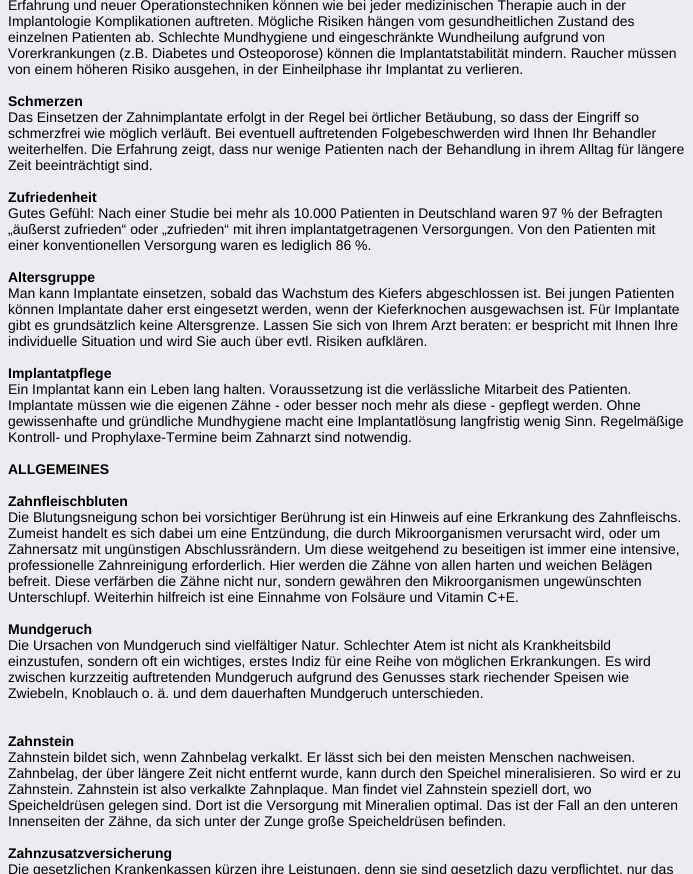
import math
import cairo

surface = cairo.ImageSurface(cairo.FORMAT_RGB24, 693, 874)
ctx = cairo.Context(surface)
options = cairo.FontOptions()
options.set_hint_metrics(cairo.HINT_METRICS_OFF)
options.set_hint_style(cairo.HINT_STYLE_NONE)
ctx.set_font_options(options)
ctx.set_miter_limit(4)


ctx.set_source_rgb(0.918, 0.922, 0.941)
ctx.paint()
ctx.select_font_face("Liberation Sans")
ctx.set_font_size(14)
ctx.set_source_rgb(0, 0, 0)
ctx.move_to(8, 10)
ctx.show_text("Erfahrung und neuer Operationstechniken können wie bei jeder medizinischen Therapie auch in der")
ctx.move_to(8, 26)
ctx.show_text("Implantologie Komplikationen auftreten. Mögliche Risiken hängen vom gesundheitlichen Zustand des")
ctx.move_to(8, 42)
ctx.show_text("einzelnen Patienten ab. Schlechte Mundhygiene und eingeschränkte Wundheilung aufgrund von")
ctx.move_to(8, 58)
ctx.show_text("Vorerkrankungen (z.B. Diabetes und Osteoporose) können die Implantatstabilität mindern. Raucher müssen")
ctx.move_to(8, 74)
ctx.show_text("von einem höheren Risiko ausgehen, in der Einheilphase ihr Implantat zu verlieren.")
ctx.select_font_face("Liberation Sans", cairo.FONT_SLANT_NORMAL, cairo.FONT_WEIGHT_BOLD)
ctx.move_to(8, 106)
ctx.show_text("Schmerzen")
ctx.select_font_face("Liberation Sans")
ctx.move_to(8, 122)
ctx.show_text("Das Einsetzen der Zahnimplantate erfolgt in der Regel bei örtlicher Betäubung, so dass der Eingriff so")
ctx.move_to(8, 138)
ctx.show_text("schmerzfrei wie möglich verläuft. Bei eventuell auftretenden Folgebeschwerden wird Ihnen Ihr Behandler")
ctx.move_to(8, 154)
ctx.show_text("weiterhelfen. Die Erfahrung zeigt, dass nur wenige Patienten nach der Behandlung in ihrem Alltag für längere")
ctx.move_to(8, 170)
ctx.show_text("Zeit beeinträchtigt sind.")
ctx.select_font_face("Liberation Sans", cairo.FONT_SLANT_NORMAL, cairo.FONT_WEIGHT_BOLD)
ctx.move_to(8, 202)
ctx.show_text("Zufriedenheit")
ctx.select_font_face("Liberation Sans")
ctx.move_to(8, 218)
ctx.show_text("Gutes Gefühl: Nach einer Studie bei mehr als 10.000 Patienten in Deutschland waren 97 % der Befragten")
ctx.move_to(8, 234)
ctx.show_text("„äußerst zufrieden“ oder „zufrieden“ mit ihren implantatgetragenen Versorgungen. Von den Patienten mit")
ctx.move_to(8, 250)
ctx.show_text("einer konventionellen Versorgung waren es lediglich 86 %.")
ctx.select_font_face("Liberation Sans", cairo.FONT_SLANT_NORMAL, cairo.FONT_WEIGHT_BOLD)
ctx.move_to(8, 282)
ctx.show_text("Altersgruppe")
ctx.select_font_face("Liberation Sans")
ctx.move_to(8, 298)
ctx.show_text("Man kann Implantate einsetzen, sobald das Wachstum des Kiefers abgeschlossen ist. Bei jungen Patienten")
ctx.move_to(8, 314)
ctx.show_text("können Implantate daher erst eingesetzt werden, wenn der Kieferknochen ausgewachsen ist. Für Implantate")
ctx.move_to(8, 330)
ctx.show_text("gibt es grundsätzlich keine Altersgrenze. Lassen Sie sich von Ihrem Arzt beraten: er bespricht mit Ihnen Ihre")
ctx.move_to(8, 346)
ctx.show_text("individuelle Situation und wird Sie auch über evtl. Risiken aufklären.")
ctx.select_font_face("Liberation Sans", cairo.FONT_SLANT_NORMAL, cairo.FONT_WEIGHT_BOLD)
ctx.move_to(8, 378)
ctx.show_text("Implantatpflege")
ctx.select_font_face("Liberation Sans")
ctx.move_to(8, 394)
ctx.show_text("Ein Implantat kann ein Leben lang halten. Voraussetzung ist die verlässliche Mitarbeit des Patienten.")
ctx.move_to(8, 410)
ctx.show_text("Implantate müssen wie die eigenen Zähne - oder besser noch mehr als diese - gepflegt werden. Ohne")
ctx.move_to(8, 426)
ctx.show_text("gewissenhafte und gründliche Mundhygiene macht eine Implantatlösung langfristig wenig Sinn. Regelmäßige")
ctx.move_to(8, 442)
ctx.show_text("Kontroll- und Prophylaxe-Termine beim Zahnarzt sind notwendig.")
ctx.select_font_face("Liberation Sans", cairo.FONT_SLANT_NORMAL, cairo.FONT_WEIGHT_BOLD)
ctx.move_to(8, 474)
ctx.show_text("ALLGEMEINES")
ctx.move_to(8, 506)
ctx.show_text("Zahnfleischbluten")
ctx.select_font_face("Liberation Sans")
ctx.move_to(8, 522)
ctx.show_text("Die Blutungsneigung schon bei vorsichtiger Berührung ist ein Hinweis auf eine Erkrankung des Zahnfleischs.")
ctx.move_to(8, 538)
ctx.show_text("Zumeist handelt es sich dabei um eine Entzündung, die durch Mikroorganismen verursacht wird, oder um")
ctx.move_to(8, 554)
ctx.show_text("Zahnersatz mit ungünstigen Abschlussrändern. Um diese weitgehend zu beseitigen ist immer eine intensive,")
ctx.move_to(8, 570)
ctx.show_text("professionelle Zahnreinigung erforderlich. Hier werden die Zähne von allen harten und weichen Belägen")
ctx.move_to(8, 586)
ctx.show_text("befreit. Diese verfärben die Zähne nicht nur, sondern gewähren den Mikroorganismen ungewünschten")
ctx.move_to(8, 602)
ctx.show_text("Unterschlupf. Weiterhin hilfreich ist eine Einnahme von Folsäure und Vitamin C+E.")
ctx.select_font_face("Liberation Sans", cairo.FONT_SLANT_NORMAL, cairo.FONT_WEIGHT_BOLD)
ctx.move_to(8, 634)
ctx.show_text("Mundgeruch")
ctx.select_font_face("Liberation Sans")
ctx.move_to(8, 650)
ctx.show_text("Die Ursachen von Mundgeruch sind vielfältiger Natur. Schlechter Atem ist nicht als Krankheitsbild")
ctx.move_to(8, 666)
ctx.show_text("einzustufen, sondern oft ein wichtiges, erstes Indiz für eine Reihe von möglichen Erkrankungen. Es wird")
ctx.move_to(8, 682)
ctx.show_text("zwischen kurzzeitig auftretenden Mundgeruch aufgrund des Genusses stark riechender Speisen wie")
ctx.move_to(8, 698)
ctx.show_text("Zwiebeln, Knoblauch o. ä. und dem dauerhaften Mundgeruch unterschieden.")
ctx.select_font_face("Liberation Sans", cairo.FONT_SLANT_NORMAL, cairo.FONT_WEIGHT_BOLD)
ctx.move_to(8, 746)
ctx.show_text("Zahnstein")
ctx.select_font_face("Liberation Sans")
ctx.move_to(8, 762)
ctx.show_text("Zahnstein bildet sich, wenn Zahnbelag verkalkt. Er lässt sich bei den meisten Menschen nachweisen.")
ctx.move_to(8, 778)
ctx.show_text("Zahnbelag, der über längere Zeit nicht entfernt wurde, kann durch den Speichel mineralisieren. So wird er zu")
ctx.move_to(8, 794)
ctx.show_text("Zahnstein. Zahnstein ist also verkalkte Zahnplaque. Man findet viel Zahnstein speziell dort, wo")
ctx.move_to(8, 810)
ctx.show_text("Speicheldrüsen gelegen sind. Dort ist die Versorgung mit Mineralien optimal. Das ist der Fall an den unteren")
ctx.move_to(8, 826)
ctx.show_text("Innenseiten der Zähne, da sich unter der Zunge große Speicheldrüsen befinden.")
ctx.select_font_face("Liberation Sans", cairo.FONT_SLANT_NORMAL, cairo.FONT_WEIGHT_BOLD)
ctx.move_to(8, 858)
ctx.show_text("Zahnzusatzversicherung")
ctx.select_font_face("Liberation Sans")
ctx.move_to(8, 874)
ctx.show_text("Die gesetzlichen Krankenkassen kürzen ihre Leistungen, denn sie sind gesetzlich dazu verpflichtet, nur das")
surface.write_to_png("page.png")
